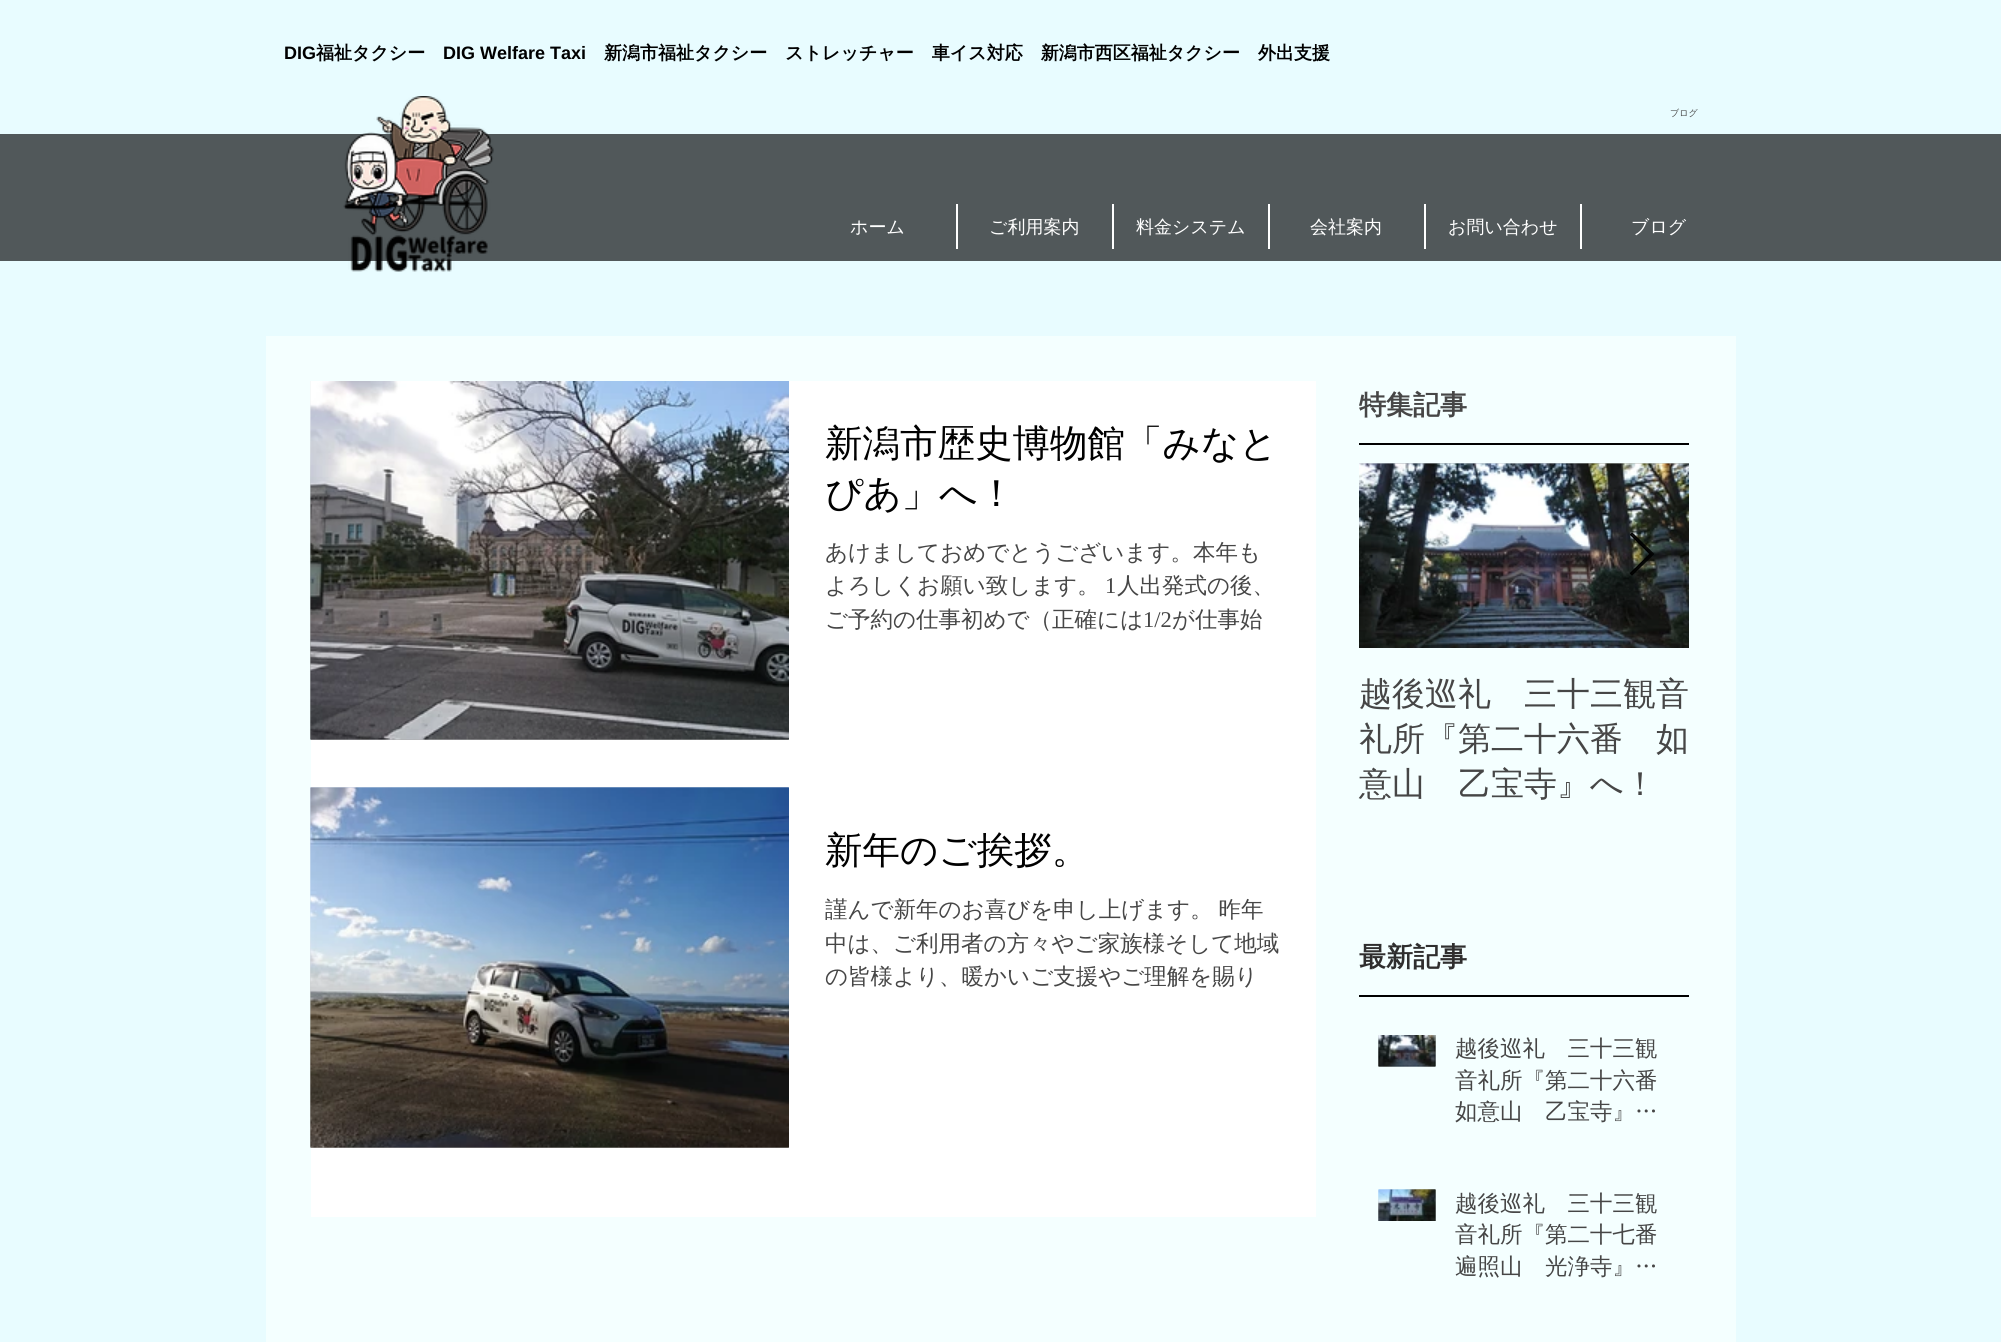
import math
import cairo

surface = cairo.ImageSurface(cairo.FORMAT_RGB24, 2001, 1342)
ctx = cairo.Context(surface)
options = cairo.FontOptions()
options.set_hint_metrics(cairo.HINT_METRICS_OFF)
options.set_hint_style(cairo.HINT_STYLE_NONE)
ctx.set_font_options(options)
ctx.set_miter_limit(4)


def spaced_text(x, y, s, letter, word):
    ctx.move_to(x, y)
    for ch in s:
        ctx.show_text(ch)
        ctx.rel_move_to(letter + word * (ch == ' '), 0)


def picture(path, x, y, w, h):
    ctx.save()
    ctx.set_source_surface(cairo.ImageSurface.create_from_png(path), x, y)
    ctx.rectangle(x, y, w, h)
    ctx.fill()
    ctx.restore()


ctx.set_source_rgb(0.91, 0.988, 1)
ctx.paint()
ctx.select_font_face("Liberation Sans", cairo.FONT_SLANT_NORMAL, cairo.FONT_WEIGHT_BOLD)
ctx.set_font_size(18)
ctx.set_source_rgb(0, 0, 0)
ctx.move_to(284, 59)
ctx.show_text("DIG")
ctx.select_font_face("WenQuanYi Zen Hei", cairo.FONT_SLANT_NORMAL, cairo.FONT_WEIGHT_BOLD)
ctx.move_to(316, 59)
ctx.show_text("福祉タクシー")
ctx.select_font_face("Liberation Sans", cairo.FONT_SLANT_NORMAL, cairo.FONT_WEIGHT_BOLD)
ctx.move_to(443, 59)
ctx.show_text("DIG Welfare Taxi")
ctx.select_font_face("WenQuanYi Zen Hei", cairo.FONT_SLANT_NORMAL, cairo.FONT_WEIGHT_BOLD)
ctx.move_to(604, 59)
ctx.show_text("新潟市福祉タクシー　ストレッチャー　車イス対応　新潟市西区福祉タクシー　外出支援")
ctx.set_source_rgb(0.318, 0.345, 0.353)
ctx.rectangle(0, 134, 2001, 127)
ctx.fill()
picture("img1.png", 343, 96, 151, 176)
ctx.select_font_face("WenQuanYi Zen Hei Medium")
ctx.set_source_rgb(1, 1, 1)
ctx.move_to(850, 233)
ctx.show_text("ホーム")
ctx.rectangle(956, 204, 2, 45)
ctx.fill()
ctx.move_to(989, 233)
ctx.show_text("ご利用案内")
ctx.rectangle(1112, 204, 2, 45)
ctx.fill()
ctx.move_to(1136, 233)
ctx.show_text("料金システム")
ctx.rectangle(1268, 204, 2, 45)
ctx.fill()
ctx.move_to(1310, 233)
ctx.show_text("会社案内")
ctx.rectangle(1424, 204, 2, 45)
ctx.fill()
ctx.move_to(1448, 233)
ctx.show_text("お問い合わせ")
ctx.rectangle(1580, 204, 2, 45)
ctx.fill()
ctx.move_to(1631, 233)
ctx.show_text("ブログ")
ctx.set_font_size(9)
ctx.set_source_rgb(0.275, 0.275, 0.275)
ctx.move_to(1670, 116)
ctx.show_text("ブログ")
ctx.set_source_rgb(0.957, 1, 1)
ctx.rectangle(266, 336, 1470, 1006)
ctx.fill()
ctx.select_font_face("WenQuanYi Zen Hei", cairo.FONT_SLANT_NORMAL, cairo.FONT_WEIGHT_BOLD)
ctx.set_font_size(27)
ctx.set_source_rgb(0.275, 0.275, 0.275)
ctx.move_to(1359, 414)
ctx.show_text("特集記事")
ctx.set_source_rgb(1, 1, 1)
ctx.rectangle(311, 381, 1005, 836)
ctx.fill()
picture("img2.png", 310, 381, 479, 359)
picture("img3.png", 310, 381, 479, 359)
ctx.select_font_face("WenQuanYi Zen Hei Medium")
ctx.set_font_size(37.5)
ctx.set_source_rgb(0, 0, 0)
ctx.move_to(825, 456)
ctx.show_text("新潟市歴史博物館「みなと")
ctx.move_to(825, 506)
ctx.show_text("ぴあ」へ！")
ctx.set_font_size(22.5)
ctx.set_source_rgb(0.275, 0.275, 0.275)
ctx.move_to(825, 560)
ctx.show_text("あけましておめでとうございます。本年も")
ctx.move_to(825, 593)
ctx.show_text("よろしくお願い致します。")
ctx.select_font_face("Liberation Serif")
ctx.move_to(1105, 593)
ctx.show_text("1")
ctx.select_font_face("WenQuanYi Zen Hei Medium")
ctx.move_to(1117, 593)
ctx.show_text("人出発式の後、")
ctx.move_to(825, 627)
ctx.show_text("ご予約の仕事初めで（正確には")
ctx.select_font_face("Liberation Serif")
ctx.move_to(1143, 627)
ctx.show_text("1/2")
ctx.select_font_face("WenQuanYi Zen Hei Medium")
ctx.move_to(1172, 627)
ctx.show_text("が仕事始")
picture("img4.png", 310, 787, 479, 361)
picture("img5.png", 310, 787, 479, 361)
ctx.set_font_size(37.5)
ctx.set_source_rgb(0, 0, 0)
ctx.move_to(825, 863)
ctx.show_text("新年のご挨拶。")
ctx.set_font_size(22.5)
ctx.set_source_rgb(0.275, 0.275, 0.275)
spaced_text(825, 917, "謹んで新年のお喜びを申し上げます。 昨年", 0, -1)
ctx.move_to(825, 951)
ctx.show_text("中は、ご利用者の方々やご家族様そして地域")
ctx.move_to(825, 984)
ctx.show_text("の皆様より、暖かいご支援やご理解を賜り")
ctx.set_source_rgb(0, 0, 0)
ctx.rectangle(1359, 443, 330, 2)
ctx.fill()
picture("img6.png", 1359, 463, 330, 1)
picture("img7.png", 1359, 463, 330, 185)
ctx.set_source_rgba(0, 0, 0, 0.9)
ctx.new_path()
ctx.move_to(1630, 535)
ctx.line_to(1632, 533)
ctx.line_to(1653, 554)
ctx.line_to(1632, 575)
ctx.line_to(1630, 573)
ctx.line_to(1650, 554)
ctx.close_path()
ctx.fill()
ctx.new_path()
ctx.move_to(1630.5, 534.5)
ctx.line_to(1632, 533)
ctx.line_to(1653.5, 554)
ctx.line_to(1632, 575)
ctx.line_to(1630.5, 573.5)
ctx.line_to(1650, 554)
ctx.close_path()
ctx.set_line_width(1.2)
ctx.stroke()
ctx.set_font_size(33)
ctx.set_source_rgb(0.275, 0.275, 0.275)
ctx.move_to(1359, 705)
ctx.show_text("越後巡礼　三十三観音")
ctx.move_to(1359, 750)
ctx.show_text("礼所『第二十六番　如")
ctx.move_to(1359, 795)
ctx.show_text("意山　乙宝寺』へ！")
ctx.select_font_face("WenQuanYi Zen Hei", cairo.FONT_SLANT_NORMAL, cairo.FONT_WEIGHT_BOLD)
ctx.set_font_size(27)
ctx.set_source_rgb(0.184, 0.18, 0.18)
ctx.move_to(1359, 966)
ctx.show_text("最新記事")
ctx.set_source_rgb(0, 0, 0)
ctx.rectangle(1359, 995, 330, 2)
ctx.fill()
picture("img8.png", 1378, 1035, 58, 32)
picture("img9.png", 1378, 1035, 58, 32)
ctx.select_font_face("WenQuanYi Zen Hei Medium")
ctx.set_font_size(22.5)
ctx.set_source_rgb(0.275, 0.275, 0.275)
ctx.move_to(1455, 1056)
ctx.show_text("越後巡礼　三十三観")
ctx.move_to(1455, 1088)
ctx.show_text("音礼所『第二十六番")
ctx.move_to(1455, 1119)
ctx.show_text("如意山　乙宝寺』…")
picture("img10.png", 1378, 1189, 58, 32)
picture("img11.png", 1378, 1189, 58, 32)
ctx.move_to(1455, 1211)
ctx.show_text("越後巡礼　三十三観")
ctx.move_to(1455, 1242)
ctx.show_text("音礼所『第二十七番")
ctx.move_to(1455, 1274)
ctx.show_text("遍照山　光浄寺』…")
surface.write_to_png("page.png")
